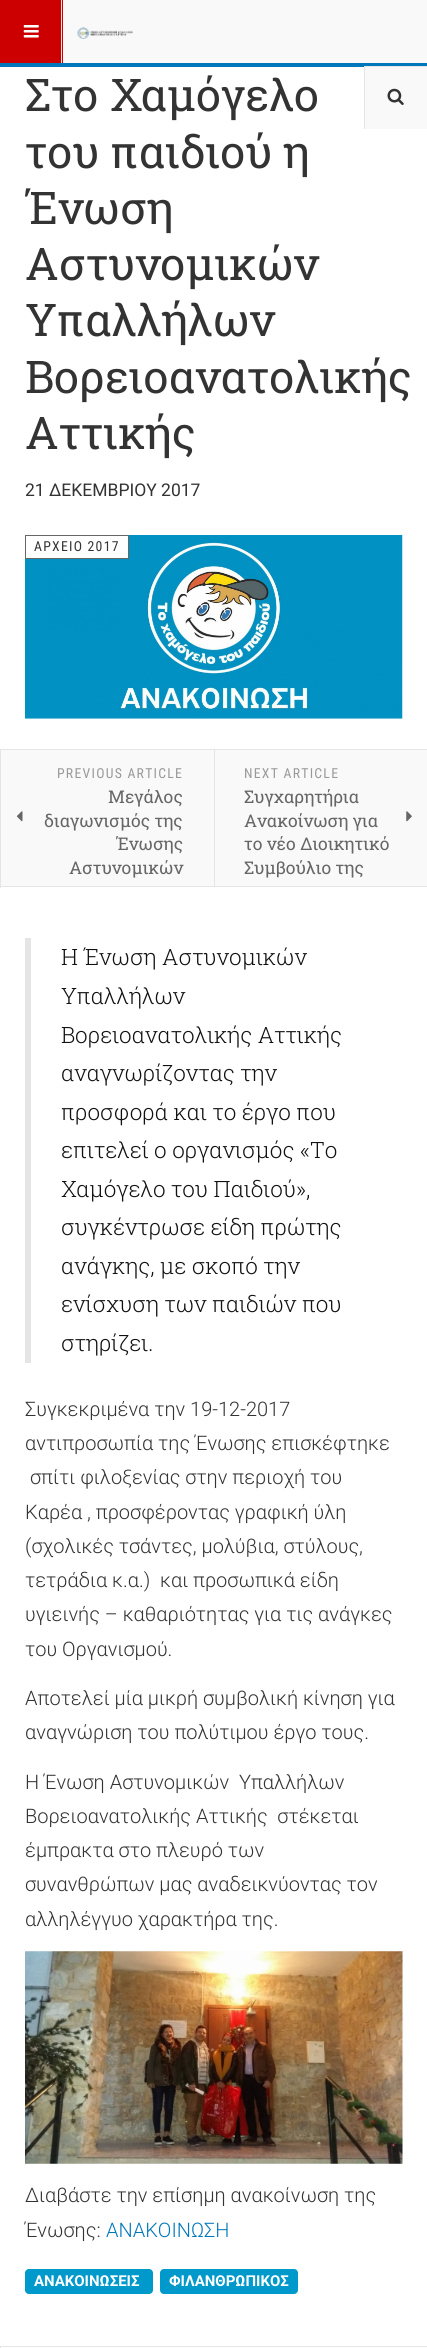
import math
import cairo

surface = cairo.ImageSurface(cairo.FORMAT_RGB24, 427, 2348)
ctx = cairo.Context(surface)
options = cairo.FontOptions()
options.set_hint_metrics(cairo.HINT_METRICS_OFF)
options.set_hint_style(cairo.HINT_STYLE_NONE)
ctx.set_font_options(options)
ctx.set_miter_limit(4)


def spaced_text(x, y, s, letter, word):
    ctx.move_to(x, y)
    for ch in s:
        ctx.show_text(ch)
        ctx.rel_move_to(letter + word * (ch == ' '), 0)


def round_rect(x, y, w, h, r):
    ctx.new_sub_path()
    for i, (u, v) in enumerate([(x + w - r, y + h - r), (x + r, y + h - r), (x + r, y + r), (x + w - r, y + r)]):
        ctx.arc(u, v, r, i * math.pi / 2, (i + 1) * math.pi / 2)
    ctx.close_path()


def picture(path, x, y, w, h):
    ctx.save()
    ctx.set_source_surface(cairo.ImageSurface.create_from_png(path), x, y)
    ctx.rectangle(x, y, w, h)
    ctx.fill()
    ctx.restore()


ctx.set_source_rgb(1, 1, 1)
ctx.paint()
ctx.set_source_rgb(0.973, 0.973, 0.973)
ctx.rectangle(63, 0, 364, 63)
ctx.fill()
ctx.set_source_rgb(0, 0.467, 0.733)
ctx.rectangle(0, 63, 427, 4)
ctx.fill()
ctx.set_source_rgb(0.8, 0, 0)
ctx.rectangle(0, 0, 63, 63)
ctx.fill()
ctx.set_source_rgb(0.898, 0.898, 0.898)
ctx.rectangle(61, 0, 1, 63)
ctx.fill()
picture("img1.png", 23, 25, 16, 13)
picture("img2.png", 77, 27, 57, 12)
ctx.set_source_rgb(0.973, 0.973, 0.973)
ctx.rectangle(365, 67, 62, 62)
ctx.fill()
ctx.set_source_rgb(0.898, 0.898, 0.898)
ctx.rectangle(365, 66, 62, 1)
ctx.fill()
ctx.rectangle(364, 66, 1, 63)
ctx.fill()
picture("img3.png", 387, 88, 17, 17)
ctx.select_font_face("Roboto Slab")
ctx.set_font_size(45)
ctx.set_source_rgb(0.2, 0.2, 0.2)
ctx.move_to(25, 111)
ctx.show_text("Στο Χαμόγελο")
ctx.move_to(25, 168)
ctx.show_text("του παιδιού η")
ctx.move_to(25, 224)
ctx.show_text("Ένωση")
ctx.move_to(25, 280)
ctx.show_text("Αστυνομικών")
ctx.move_to(25, 336)
ctx.show_text("Υπαλλήλων")
ctx.move_to(25, 393)
ctx.show_text("Βορειοανατολικής")
ctx.move_to(25, 449)
ctx.show_text("Αττικής")
ctx.select_font_face("Roboto")
ctx.set_font_size(17.5)
ctx.move_to(25, 496)
ctx.show_text("21 ΔΕΚΕΜΒΡΙΟΥ 2017")
picture("img4.png", 25, 535, 378, 184)
ctx.set_source_rgb(1, 1, 1)
ctx.rectangle(25.5, 535.5, 103, 23)
ctx.fill_preserve()
ctx.set_source_rgb(0.4, 0.4, 0.4)
ctx.set_line_width(1)
ctx.stroke()
ctx.select_font_face("Roboto Condensed")
ctx.set_font_size(13.75)
ctx.set_source_rgb(0.2, 0.2, 0.2)
spaced_text(34, 551, "ΑΡΧΕΙΟ 2017", 1.25, 0)
ctx.set_source_rgb(0.898, 0.898, 0.898)
ctx.rectangle(0, 749, 427, 1)
ctx.fill()
ctx.rectangle(0, 886, 427, 1)
ctx.fill()
ctx.rectangle(0, 749, 1, 139)
ctx.fill()
ctx.rectangle(214, 750, 1, 136)
ctx.fill()
ctx.set_source_rgb(0.973, 0.973, 0.973)
ctx.rectangle(1, 750, 213, 136)
ctx.fill()
ctx.set_source_rgb(0.6, 0.6, 0.6)
spaced_text(57, 778, "PREVIOUS ARTICLE", 1.25, 0)
ctx.select_font_face("Roboto Slab")
ctx.set_font_size(17.5)
ctx.set_source_rgb(0.4, 0.4, 0.4)
ctx.move_to(108, 803)
ctx.show_text("Μεγάλος")
picture("img5.png", 16, 811, 7, 11)
ctx.move_to(44, 827)
ctx.show_text("διαγωνισμός της")
ctx.move_to(116, 850)
ctx.show_text("Ένωσης")
ctx.move_to(69, 874)
ctx.show_text("Αστυνομικών")
ctx.set_source_rgb(0.973, 0.973, 0.973)
ctx.rectangle(215, 750, 212, 136)
ctx.fill()
ctx.select_font_face("Roboto Condensed")
ctx.set_font_size(13.75)
ctx.set_source_rgb(0.6, 0.6, 0.6)
spaced_text(244, 778, "NEXT ARTICLE", 1.25, 0)
ctx.select_font_face("Roboto Slab")
ctx.set_font_size(17.5)
ctx.set_source_rgb(0.4, 0.4, 0.4)
ctx.move_to(244, 803)
ctx.show_text("Συγχαρητήρια")
ctx.move_to(244, 827)
ctx.show_text("Ανακοίνωση για")
picture("img6.png", 406, 811, 6, 11)
ctx.move_to(244, 850)
ctx.show_text("το νέο Διοικητικό")
ctx.move_to(244, 874)
ctx.show_text("Συμβούλιο της")
ctx.set_source_rgb(0.898, 0.898, 0.898)
ctx.rectangle(25, 938, 6, 425)
ctx.fill()
ctx.select_font_face("Roboto Slab Light")
ctx.set_font_size(22.5)
ctx.set_source_rgb(0.067, 0.067, 0.067)
ctx.move_to(61, 965)
ctx.show_text("Η Ένωση Αστυνομικών")
ctx.move_to(61, 1004)
ctx.show_text("Υπαλλήλων")
ctx.move_to(61, 1043)
ctx.show_text("Βορειοανατολικής Αττικής")
ctx.move_to(61, 1081)
ctx.show_text("αναγνωρίζοντας την")
ctx.move_to(61, 1120)
ctx.show_text("προσφορά και το έργο που")
ctx.move_to(61, 1158)
ctx.show_text("επιτελεί ο οργανισμός «Το")
ctx.move_to(61, 1197)
ctx.show_text("Χαμόγελο του Παιδιού»,")
ctx.move_to(61, 1235)
ctx.show_text("συγκέντρωσε είδη πρώτης")
ctx.move_to(61, 1274)
ctx.show_text("ανάγκης, με σκοπό την")
ctx.move_to(61, 1312)
ctx.show_text("ενίσχυση των παιδιών που")
ctx.move_to(61, 1351)
ctx.show_text("στηρίζει.")
ctx.select_font_face("Roboto Light")
ctx.set_font_size(20)
ctx.set_source_rgb(0.2, 0.2, 0.2)
ctx.move_to(25, 1416)
ctx.show_text("Συγκεκριμένα την 19-12-2017")
ctx.move_to(25, 1450)
ctx.show_text("αντιπροσωπία της Ένωσης επισκέφτηκε")
ctx.move_to(30, 1484)
ctx.show_text("σπίτι φιλοξενίας στην περιοχή του")
ctx.move_to(25, 1519)
ctx.show_text("Καρέα , προσφέροντας γραφική ύλη")
ctx.move_to(25, 1553)
ctx.show_text("(σχολικές τσάντες, μολύβια, στύλους,")
ctx.move_to(25, 1587)
ctx.show_text("τετράδια κ.α.)  και προσωπικά είδη")
ctx.move_to(25, 1621)
ctx.show_text("υγιεινής – καθαριότητας για τις ανάγκες")
ctx.move_to(25, 1656)
ctx.show_text("του Οργανισμού.")
ctx.move_to(25, 1705)
ctx.show_text("Αποτελεί μία μικρή συμβολική κίνηση για")
ctx.move_to(25, 1739)
ctx.show_text("αναγνώριση του πολύτιμου έργο τους.")
ctx.move_to(25, 1789)
ctx.show_text("Η Ένωση Αστυνομικών  Υπαλλήλων")
ctx.move_to(25, 1823)
ctx.show_text("Βορειοανατολικής Αττικής  στέκεται")
ctx.move_to(25, 1857)
ctx.show_text("έμπρακτα στο πλευρό των")
ctx.move_to(25, 1891)
ctx.show_text("συνανθρώπων μας αναδεικνύοντας τον")
ctx.move_to(25, 1926)
ctx.show_text("αλληλέγγυο χαρακτήρα της.")
picture("img7.png", 25, 1951, 378, 213)
ctx.move_to(25, 2202)
ctx.show_text("Διαβάστε την επίσημη ανακοίνωση της")
ctx.move_to(25, 2237)
ctx.show_text("Ένωσης:")
ctx.set_source_rgb(0, 0.467, 0.733)
ctx.move_to(106, 2237)
ctx.show_text("ΑΝΑΚΟΙΝΩΣΗ")
ctx.set_source_rgb(0, 0.6, 0.8)
round_rect(25, 2269, 128, 25, 4)
ctx.fill()
ctx.select_font_face("Roboto", cairo.FONT_SLANT_NORMAL, cairo.FONT_WEIGHT_BOLD)
ctx.set_font_size(15)
ctx.set_source_rgb(1, 1, 1)
ctx.move_to(34, 2286)
ctx.show_text("ΑΝΑΚΟΙΝΩΣΕΙΣ")
ctx.set_source_rgb(0, 0.6, 0.8)
round_rect(160, 2269, 138, 25, 4)
ctx.fill()
ctx.set_source_rgb(1, 1, 1)
ctx.move_to(169, 2286)
ctx.show_text("ΦΙΛΑΝΘΡΩΠΙΚΟΣ")
ctx.set_source_rgb(0.898, 0.898, 0.898)
ctx.rectangle(0, 2346, 427, 1)
ctx.fill()
ctx.rectangle(0, 2346, 1, 2)
ctx.fill()
surface.write_to_png("page.png")
